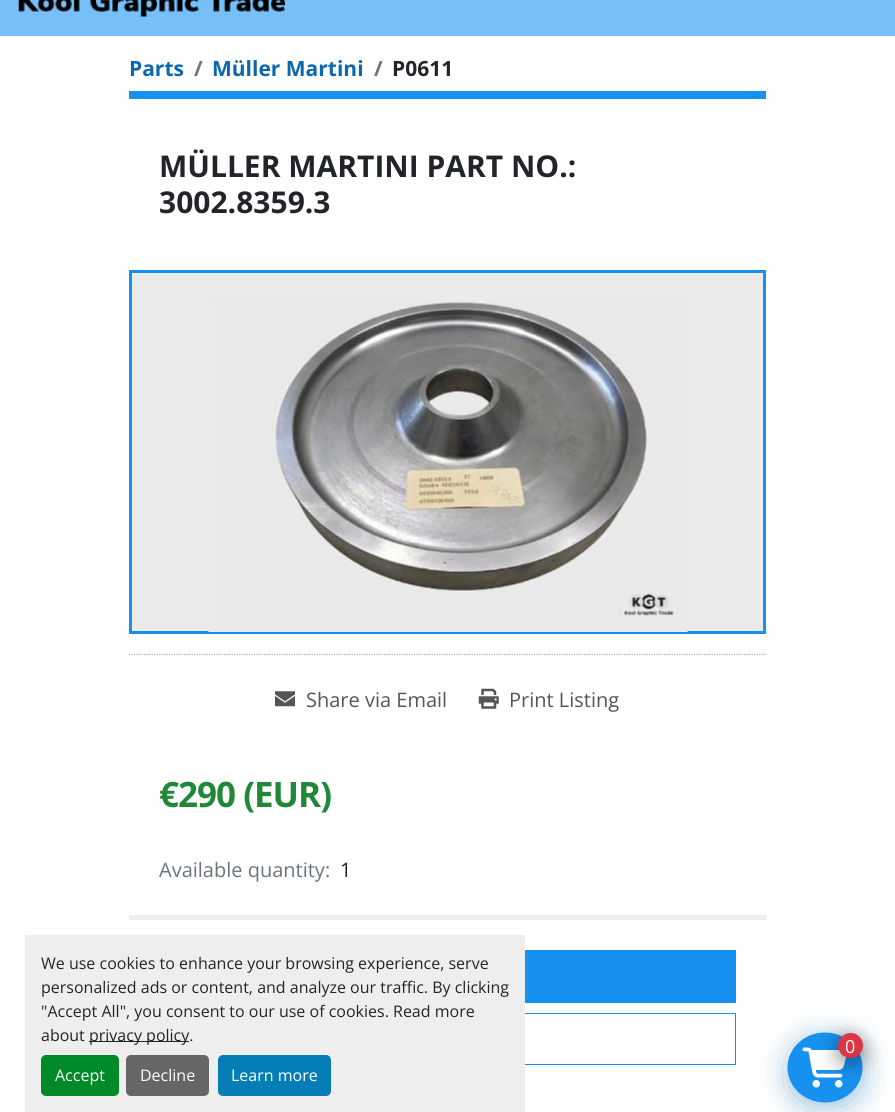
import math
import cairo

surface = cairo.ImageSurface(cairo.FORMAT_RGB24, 895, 1112)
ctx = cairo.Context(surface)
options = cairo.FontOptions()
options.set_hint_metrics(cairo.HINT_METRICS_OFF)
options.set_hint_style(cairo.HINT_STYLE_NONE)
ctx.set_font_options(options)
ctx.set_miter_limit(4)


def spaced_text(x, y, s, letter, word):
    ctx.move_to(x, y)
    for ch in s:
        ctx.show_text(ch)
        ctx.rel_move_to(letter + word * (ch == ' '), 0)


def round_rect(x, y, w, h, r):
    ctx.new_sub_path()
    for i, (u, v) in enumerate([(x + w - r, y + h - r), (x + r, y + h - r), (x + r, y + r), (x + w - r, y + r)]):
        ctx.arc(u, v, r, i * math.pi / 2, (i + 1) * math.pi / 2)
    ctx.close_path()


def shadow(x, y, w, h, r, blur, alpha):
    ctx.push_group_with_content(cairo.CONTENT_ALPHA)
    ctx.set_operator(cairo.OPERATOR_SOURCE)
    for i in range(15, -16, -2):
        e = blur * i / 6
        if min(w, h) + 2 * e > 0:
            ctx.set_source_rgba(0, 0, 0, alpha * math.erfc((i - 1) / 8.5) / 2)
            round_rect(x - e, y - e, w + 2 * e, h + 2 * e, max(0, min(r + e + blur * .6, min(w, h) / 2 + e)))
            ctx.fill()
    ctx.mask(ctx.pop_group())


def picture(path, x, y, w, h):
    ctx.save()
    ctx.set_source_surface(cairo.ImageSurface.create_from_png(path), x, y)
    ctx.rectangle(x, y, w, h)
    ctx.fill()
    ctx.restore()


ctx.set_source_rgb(1, 1, 1)
ctx.paint()
ctx.set_source_rgb(0.463, 0.749, 0.973)
ctx.rectangle(0, 0, 895, 36)
ctx.fill()
picture("img1.png", 18, 0, 267, 17)
ctx.set_source_rgb(0.09, 0.569, 0.941)
ctx.rectangle(129, 91, 637, 8)
ctx.fill()
ctx.select_font_face("Open Sans", cairo.FONT_SLANT_NORMAL, cairo.FONT_WEIGHT_BOLD)
ctx.set_font_size(21)
ctx.set_source_rgb(0.043, 0.404, 0.686)
ctx.move_to(129, 76)
ctx.show_text("Parts")
ctx.set_source_rgb(0.424, 0.459, 0.49)
ctx.move_to(194, 76)
ctx.show_text("/")
ctx.set_source_rgb(0.043, 0.404, 0.686)
ctx.move_to(212, 76)
ctx.show_text("Müller Martini")
ctx.set_source_rgb(0.424, 0.459, 0.49)
ctx.move_to(374, 76)
ctx.show_text("/")
ctx.set_source_rgb(0.129, 0.145, 0.161)
ctx.move_to(392, 76)
ctx.show_text("P0611")
ctx.set_font_size(30)
ctx.move_to(159, 177)
ctx.show_text("MÜLLER MARTINI PART NO.:")
ctx.move_to(159, 213)
ctx.show_text("3002.8359.3")
ctx.set_source_rgb(0.918, 0.918, 0.918)
ctx.rectangle(130.5, 271.5, 634, 361)
ctx.fill_preserve()
ctx.set_source_rgb(0.09, 0.569, 0.941)
ctx.set_line_width(3)
ctx.stroke()
picture("img2.png", 208, 300, 480, 332)
ctx.new_path()
ctx.move_to(129, 654.5)
ctx.line_to(766, 654.5)
ctx.set_source_rgb(0.667, 0.667, 0.667)
ctx.set_line_width(1.2)
ctx.set_dash([1.25, 1.25])
ctx.stroke()
picture("img3.png", 275, 691, 20, 16)
ctx.select_font_face("Open Sans")
ctx.set_font_size(20)
ctx.set_source_rgb(0.333, 0.333, 0.333)
ctx.move_to(306, 707)
ctx.show_text("Share via Email")
picture("img4.png", 478, 688, 21, 21)
ctx.move_to(509, 707)
ctx.show_text("Print Listing")
ctx.select_font_face("Open Sans", cairo.FONT_SLANT_NORMAL, cairo.FONT_WEIGHT_BOLD)
ctx.set_font_size(35)
ctx.set_source_rgb(0.129, 0.533, 0.22)
spaced_text(159, 807, "€290 (EUR)", -1, 0)
ctx.select_font_face("Open Sans")
ctx.set_font_size(20)
ctx.set_source_rgb(0.424, 0.459, 0.49)
ctx.move_to(159, 877)
ctx.show_text("Available quantity:")
ctx.set_source_rgb(0.129, 0.145, 0.161)
ctx.move_to(340, 877)
ctx.show_text("1")
ctx.set_source_rgb(0.933, 0.933, 0.933)
ctx.rectangle(129, 915, 637, 5)
ctx.fill()
ctx.set_source_rgb(0.09, 0.569, 0.941)
ctx.rectangle(525, 950, 211, 53)
ctx.fill()
ctx.rectangle(159.5, 1013.5, 576, 51)
ctx.set_line_width(1)
ctx.set_dash([])
ctx.stroke()
ctx.set_source_rgb(0.043, 0.404, 0.686)
shadow(788, 1038, 75, 70, 35, 15, 0.4)
ctx.set_source_rgb(0.09, 0.569, 0.941)
ctx.new_path()
ctx.move_to(825, 1032.5)
ctx.curve_to(845.5, 1032.5, 862.5, 1048, 862.5, 1067.5)
ctx.curve_to(862.5, 1087, 845.5, 1102.5, 825, 1102.5)
ctx.curve_to(804.5, 1102.5, 787.5, 1087, 787.5, 1067.5)
ctx.curve_to(787.5, 1048, 804.5, 1032.5, 825, 1032.5)
ctx.close_path()
ctx.fill()
picture("img5.png", 802, 1047, 45, 41)
ctx.set_source_rgb(0, 0, 0)
shadow(838, 1038, 25, 25, 12.5, 10, 0.4)
ctx.set_source_rgb(0.863, 0.208, 0.271)
ctx.arc(850.5, 1045.5, 12.5, 0, 2 * math.pi)
ctx.fill()
ctx.set_font_size(18)
ctx.set_source_rgb(1, 1, 1)
ctx.move_to(845, 1053)
ctx.show_text("0")
ctx.set_source_rgb(0.933, 0.933, 0.933)
ctx.rectangle(25, 935, 500, 177)
ctx.fill()
ctx.set_font_size(16)
ctx.set_source_rgb(0.129, 0.145, 0.161)
ctx.move_to(41, 969)
ctx.show_text("We use cookies to enhance your browsing experience, serve")
ctx.move_to(41, 993)
ctx.show_text("personalized ads or content, and analyze our traffic. By clicking")
ctx.move_to(41, 1017)
ctx.show_text("\"Accept All\", you consent to our use of cookies. Read more")
ctx.move_to(41, 1041)
ctx.show_text("about")
ctx.rectangle(89, 1041, 100, 1)
ctx.fill()
ctx.move_to(89, 1041)
ctx.show_text("privacy policy.")
ctx.set_source_rgb(0, 0.541, 0.157)
round_rect(41, 1055, 78, 41, 5)
ctx.fill()
ctx.set_source_rgb(1, 1, 1)
ctx.move_to(55, 1081)
ctx.show_text("Accept")
ctx.set_source_rgb(0.4, 0.4, 0.4)
round_rect(126, 1055, 83, 41, 5)
ctx.fill()
ctx.set_source_rgb(1, 1, 1)
ctx.move_to(140, 1081)
ctx.show_text("Decline")
ctx.set_source_rgb(0.02, 0.494, 0.714)
round_rect(218, 1055, 113, 41, 5)
ctx.fill()
ctx.set_source_rgb(1, 1, 1)
ctx.move_to(231, 1081)
ctx.show_text("Learn more")
surface.write_to_png("page.png")
